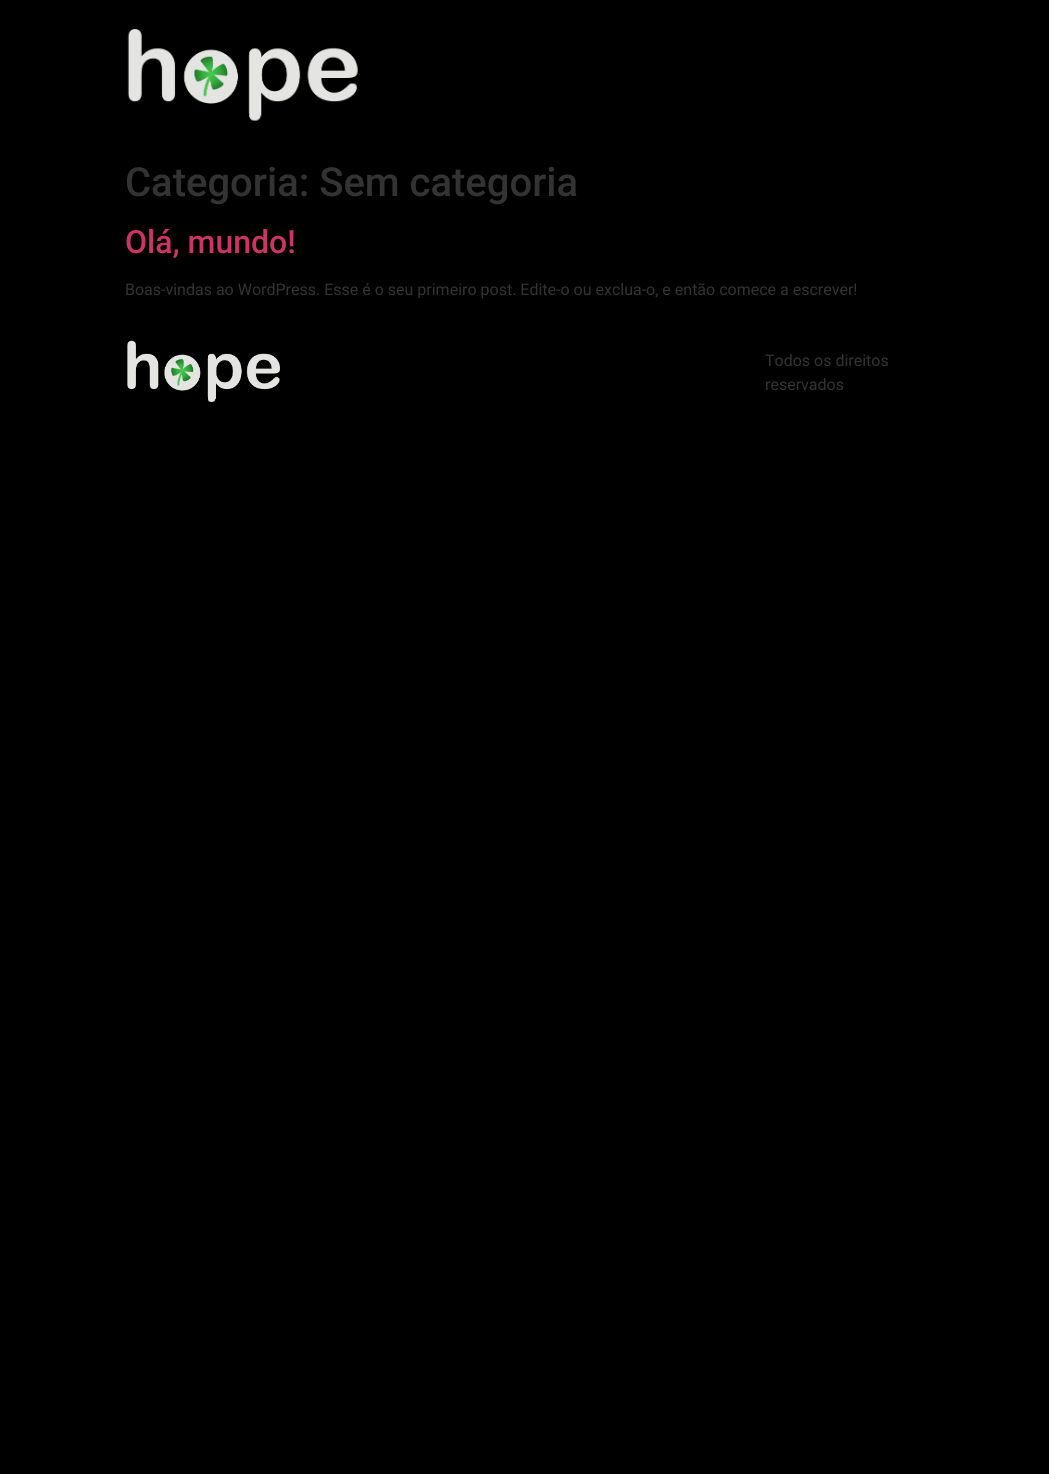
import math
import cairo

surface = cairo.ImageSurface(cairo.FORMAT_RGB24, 1049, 1474)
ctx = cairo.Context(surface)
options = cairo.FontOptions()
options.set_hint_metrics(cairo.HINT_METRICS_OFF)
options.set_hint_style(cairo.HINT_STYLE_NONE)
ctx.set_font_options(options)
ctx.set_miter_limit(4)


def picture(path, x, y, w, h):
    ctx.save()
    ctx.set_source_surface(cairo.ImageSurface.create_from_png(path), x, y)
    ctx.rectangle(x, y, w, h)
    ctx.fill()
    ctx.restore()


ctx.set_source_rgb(0, 0, 0)
ctx.paint()
picture("img1.png", 127, 29, 231, 92)
ctx.select_font_face("Roboto Medium")
ctx.set_font_size(40)
ctx.set_source_rgb(0.2, 0.2, 0.2)
ctx.move_to(125, 196)
ctx.show_text("Categoria: Sem categoria")
ctx.set_font_size(32)
ctx.set_source_rgb(0.8, 0.2, 0.4)
ctx.move_to(125, 253)
ctx.show_text("Olá, mundo!")
ctx.select_font_face("Roboto")
ctx.set_font_size(16)
ctx.set_source_rgb(0.2, 0.2, 0.2)
ctx.move_to(125, 295)
ctx.show_text("Boas-vindas ao WordPress. Esse é o seu primeiro post. Edite-o ou exclua-o, e então comece a escrever!")
picture("img2.png", 127, 340, 153, 62)
ctx.move_to(765, 366)
ctx.show_text("Todos os direitos")
ctx.move_to(765, 390)
ctx.show_text("reservados")
surface.write_to_png("page.png")
